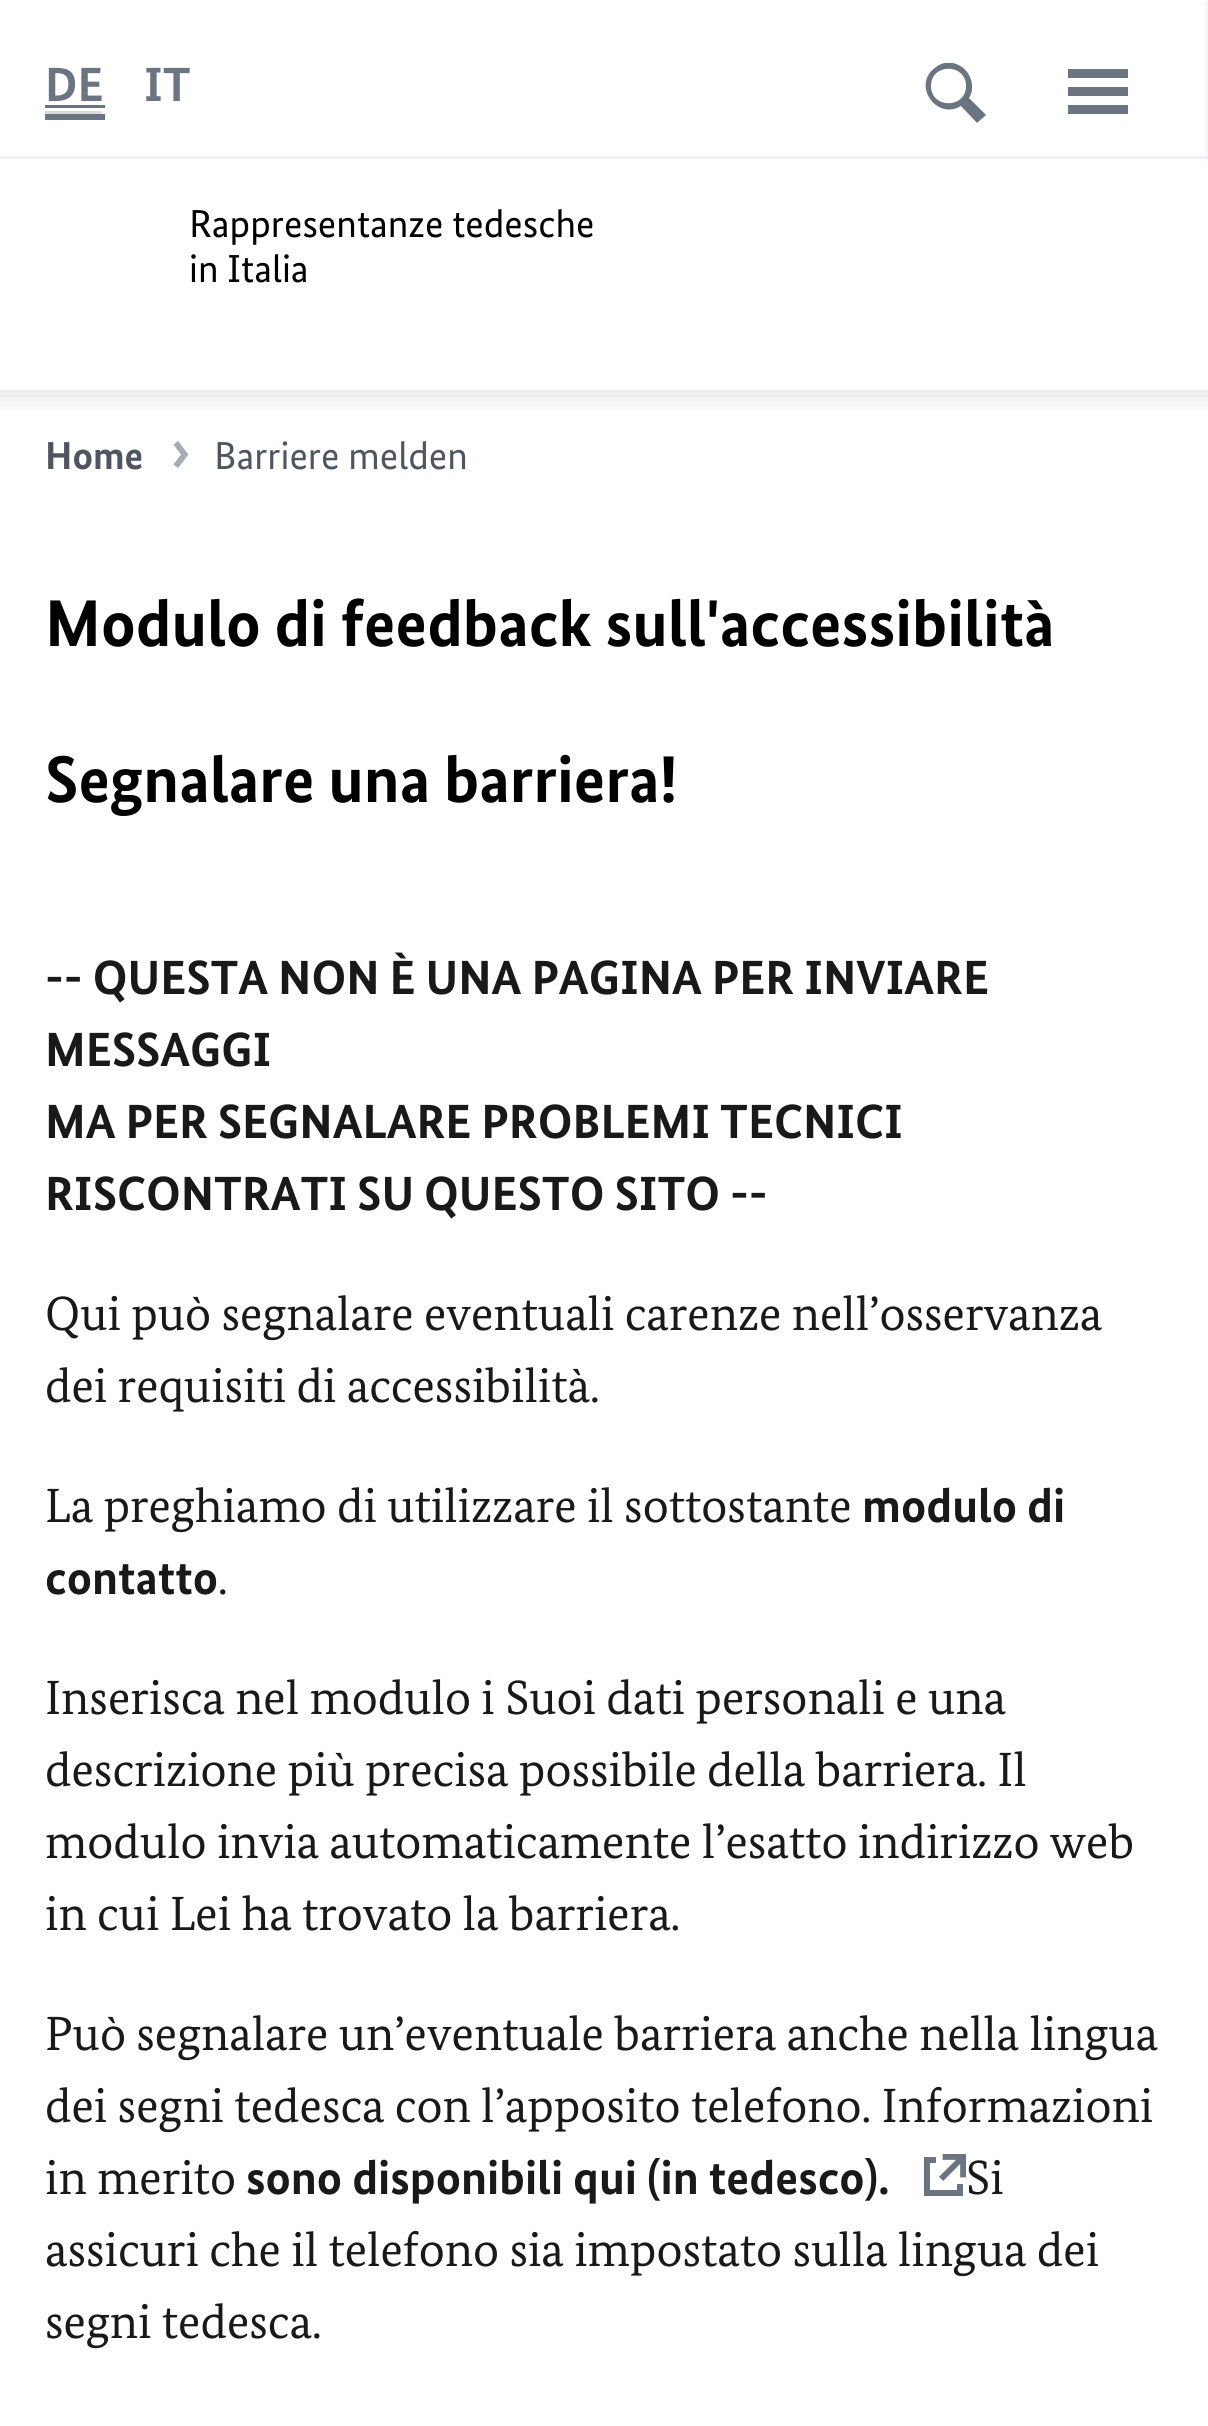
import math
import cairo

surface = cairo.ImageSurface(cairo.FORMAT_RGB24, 1208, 2426)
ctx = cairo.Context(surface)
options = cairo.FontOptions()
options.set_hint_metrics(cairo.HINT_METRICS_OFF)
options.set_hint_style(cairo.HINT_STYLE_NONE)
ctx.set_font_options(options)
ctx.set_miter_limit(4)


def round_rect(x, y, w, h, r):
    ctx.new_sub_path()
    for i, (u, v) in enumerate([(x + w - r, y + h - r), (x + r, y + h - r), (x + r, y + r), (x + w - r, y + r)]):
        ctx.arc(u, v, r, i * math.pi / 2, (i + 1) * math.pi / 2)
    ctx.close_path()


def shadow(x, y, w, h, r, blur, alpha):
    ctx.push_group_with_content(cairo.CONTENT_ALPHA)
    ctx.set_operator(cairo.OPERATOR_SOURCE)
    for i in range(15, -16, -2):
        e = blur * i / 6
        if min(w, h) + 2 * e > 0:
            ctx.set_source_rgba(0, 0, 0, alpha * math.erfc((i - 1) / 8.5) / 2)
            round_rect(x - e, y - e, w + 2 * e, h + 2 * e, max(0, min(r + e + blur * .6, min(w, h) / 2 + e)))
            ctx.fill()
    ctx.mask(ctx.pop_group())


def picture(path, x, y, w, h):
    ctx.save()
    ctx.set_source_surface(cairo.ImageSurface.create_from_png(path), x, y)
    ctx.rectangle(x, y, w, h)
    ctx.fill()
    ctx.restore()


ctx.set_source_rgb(1, 1, 1)
ctx.paint()
ctx.save()
ctx.rectangle(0, 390, 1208, 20)
ctx.clip()
ctx.set_source_rgb(0, 0, 0)
shadow(-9, -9, 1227, 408, 0, 13.5, 0.1)
ctx.restore()
ctx.select_font_face("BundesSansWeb", cairo.FONT_SLANT_NORMAL, cairo.FONT_WEIGHT_BOLD)
ctx.set_font_size(48)
ctx.set_source_rgb(0.42, 0.459, 0.506)
ctx.move_to(45, 101)
ctx.show_text("DE")
ctx.rectangle(45, 105, 60, 3)
ctx.fill()
ctx.set_source_rgb(0.855, 0.867, 0.878)
ctx.rectangle(45, 111, 57, 3)
ctx.fill()
ctx.set_source_rgb(0.42, 0.459, 0.506)
ctx.rectangle(45, 114, 60, 6)
ctx.fill()
ctx.move_to(144, 101)
ctx.show_text("IT")
ctx.save()
ctx.rectangle(924, 63, 63, 63)
ctx.clip()
ctx.new_path()
ctx.move_to(931, 86)
ctx.curve_to(931, 63, 966, 63, 966, 86)
ctx.curve_to(966, 109, 931, 109, 931, 86)
ctx.close_path()
ctx.move_to(986, 115)
ctx.line_to(969, 98)
ctx.curve_to(973, 92, 973, 84, 970, 77)
ctx.curve_to(967, 70, 961, 65, 953, 63)
ctx.curve_to(947, 62, 941, 63, 936, 67)
ctx.curve_to(911, 84, 936, 121, 961, 106)
ctx.line_to(977, 123)
ctx.close_path()
ctx.fill()
ctx.restore()
ctx.rectangle(1068, 87, 60, 9)
ctx.fill()
ctx.rectangle(1068, 69, 60, 9)
ctx.fill()
ctx.rectangle(1068, 105, 60, 9)
ctx.fill()
ctx.set_source_rgb(0.945, 0.949, 0.953)
ctx.rectangle(0, 156, 1208, 3)
ctx.fill()
ctx.select_font_face("BundesSansWeb")
ctx.set_font_size(39)
ctx.set_source_rgb(0, 0, 0)
ctx.move_to(189, 237)
ctx.show_text("Rappresentanze tedesche")
ctx.move_to(189, 282)
ctx.show_text("in Italia")
ctx.set_source_rgb(0.878, 0.886, 0.894)
shadow(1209, 3, 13, 153, 0, 4.5, 1)
ctx.select_font_face("BundesSansWeb", cairo.FONT_SLANT_NORMAL, cairo.FONT_WEIGHT_BOLD)
ctx.set_source_rgb(0.31, 0.337, 0.38)
ctx.move_to(45, 469)
ctx.show_text("Home")
picture("img1.png", 173, 441, 16, 27)
ctx.select_font_face("BundesSansWeb")
ctx.move_to(214, 469)
ctx.show_text("Barriere melden")
ctx.select_font_face("BundesSansWeb", cairo.FONT_SLANT_NORMAL, cairo.FONT_WEIGHT_BOLD)
ctx.set_font_size(66)
ctx.set_source_rgb(0, 0, 0)
ctx.move_to(45, 646)
ctx.show_text("Modulo di feedback sull'accessibilità")
ctx.move_to(45, 802)
ctx.show_text("Segnalare una barriera!")
ctx.set_font_size(48)
ctx.set_source_rgb(0.098, 0.098, 0.098)
ctx.move_to(45, 994)
ctx.show_text("-- QUESTA NON È UNA PAGINA PER INVIARE")
ctx.move_to(45, 1066)
ctx.show_text("MESSAGGI")
ctx.move_to(45, 1138)
ctx.show_text("MA PER SEGNALARE PROBLEMI TECNICI")
ctx.move_to(45, 1210)
ctx.show_text("RISCONTRATI SU QUESTO SITO --")
ctx.select_font_face("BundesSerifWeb")
ctx.move_to(45, 1330)
ctx.show_text("Qui può segnalare eventuali carenze nell’osservanza")
ctx.move_to(45, 1402)
ctx.show_text("dei requisiti di accessibilità.")
ctx.move_to(45, 1522)
ctx.show_text("La preghiamo di utilizzare il sottostante")
ctx.select_font_face("BundesSansWeb", cairo.FONT_SLANT_NORMAL, cairo.FONT_WEIGHT_BOLD)
ctx.move_to(862, 1522)
ctx.show_text("modulo di")
ctx.move_to(45, 1594)
ctx.show_text("contatto")
ctx.select_font_face("BundesSerifWeb")
ctx.move_to(218, 1594)
ctx.show_text(".")
ctx.move_to(45, 1714)
ctx.show_text("Inserisca nel modulo i Suoi dati personali e una")
ctx.move_to(45, 1786)
ctx.show_text("descrizione più precisa possibile della barriera. Il")
ctx.move_to(45, 1858)
ctx.show_text("modulo invia automaticamente l’esatto indirizzo web")
ctx.move_to(45, 1930)
ctx.show_text("in cui Lei ha trovato la barriera.")
ctx.move_to(45, 2050)
ctx.show_text("Può segnalare un’eventuale barriera anche nella lingua")
ctx.move_to(45, 2122)
ctx.show_text("dei segni tedesca con l’apposito telefono. Informazioni")
ctx.move_to(45, 2194)
ctx.show_text("in merito")
ctx.select_font_face("BundesSansWeb", cairo.FONT_SLANT_NORMAL, cairo.FONT_WEIGHT_BOLD)
ctx.move_to(246, 2194)
ctx.show_text("sono disponibili qui (in tedesco).")
picture("img2.png", 924, 2154, 42, 42)
ctx.select_font_face("BundesSerifWeb")
ctx.move_to(966, 2194)
ctx.show_text("Si")
ctx.move_to(45, 2266)
ctx.show_text("assicuri che il telefono sia impostato sulla lingua dei")
ctx.move_to(45, 2338)
ctx.show_text("segni tedesca.")
surface.write_to_png("page.png")
